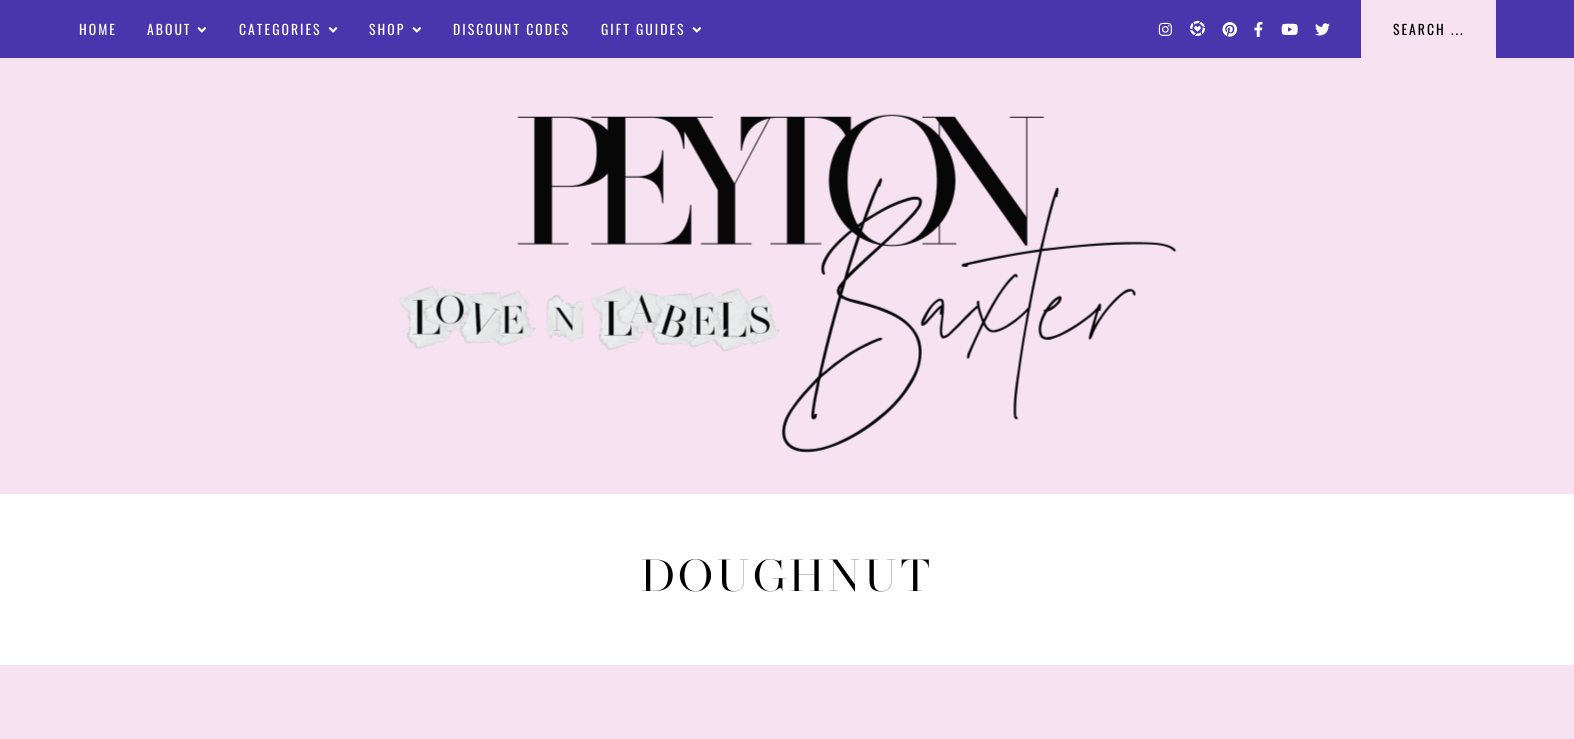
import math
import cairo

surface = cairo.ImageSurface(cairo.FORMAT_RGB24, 1574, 739)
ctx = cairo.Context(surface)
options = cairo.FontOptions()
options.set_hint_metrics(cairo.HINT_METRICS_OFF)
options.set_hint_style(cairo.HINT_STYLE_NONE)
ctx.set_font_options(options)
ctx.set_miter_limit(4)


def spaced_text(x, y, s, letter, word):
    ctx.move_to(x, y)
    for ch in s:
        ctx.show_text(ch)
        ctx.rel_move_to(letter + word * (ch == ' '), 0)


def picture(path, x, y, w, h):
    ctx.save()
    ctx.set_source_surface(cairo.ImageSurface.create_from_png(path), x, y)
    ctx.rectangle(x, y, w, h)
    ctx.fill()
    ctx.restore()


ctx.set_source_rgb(1, 1, 1)
ctx.paint()
ctx.set_source_rgb(0.286, 0.208, 0.675)
ctx.rectangle(0, 0, 1574, 58)
ctx.fill()
ctx.select_font_face("Oswald")
ctx.set_font_size(13.75)
ctx.set_source_rgb(1, 1, 1)
spaced_text(79, 35, "HOME", 2, 0)
spaced_text(147, 35, "ABOUT", 2, 0)
picture("img1.png", 197, 27, 10, 6)
spaced_text(239, 35, "CATEGORIES", 2, 0)
picture("img2.png", 328, 27, 10, 6)
spaced_text(369, 35, "SHOP", 2, 0)
picture("img1.png", 412, 27, 10, 6)
spaced_text(453, 35, "DISCOUNT CODES", 2, 0)
spaced_text(601, 35, "GIFT GUIDES", 2, 0)
picture("img1.png", 692, 27, 10, 6)
picture("img3.png", 1158, 22, 14, 14)
picture("img4.png", 1190, 20, 15, 16)
picture("img5.png", 1222, 22, 15, 15)
picture("img6.png", 1254, 21, 9, 16)
picture("img7.png", 1281, 23, 17, 12)
picture("img8.png", 1315, 23, 15, 13)
ctx.set_source_rgb(0.961, 0.886, 0.941)
ctx.rectangle(1361, 0, 135, 58)
ctx.fill()
ctx.set_source_rgb(0, 0, 0)
spaced_text(1393, 35, "SEARCH ...", 2, 0)
ctx.set_source_rgb(0.961, 0.886, 0.941)
ctx.rectangle(0, 58, 1574, 436)
ctx.fill()
picture("img9.png", 399, 114, 778, 339)
ctx.select_font_face("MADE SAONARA")
ctx.set_font_size(45)
ctx.set_source_rgb(0, 0, 0)
spaced_text(641, 591, "DOUGHNUT", 4.5, 0)
ctx.set_source_rgb(0.961, 0.886, 0.941)
ctx.rectangle(0, 665, 1574, 74)
ctx.fill()
surface.write_to_png("page.png")
